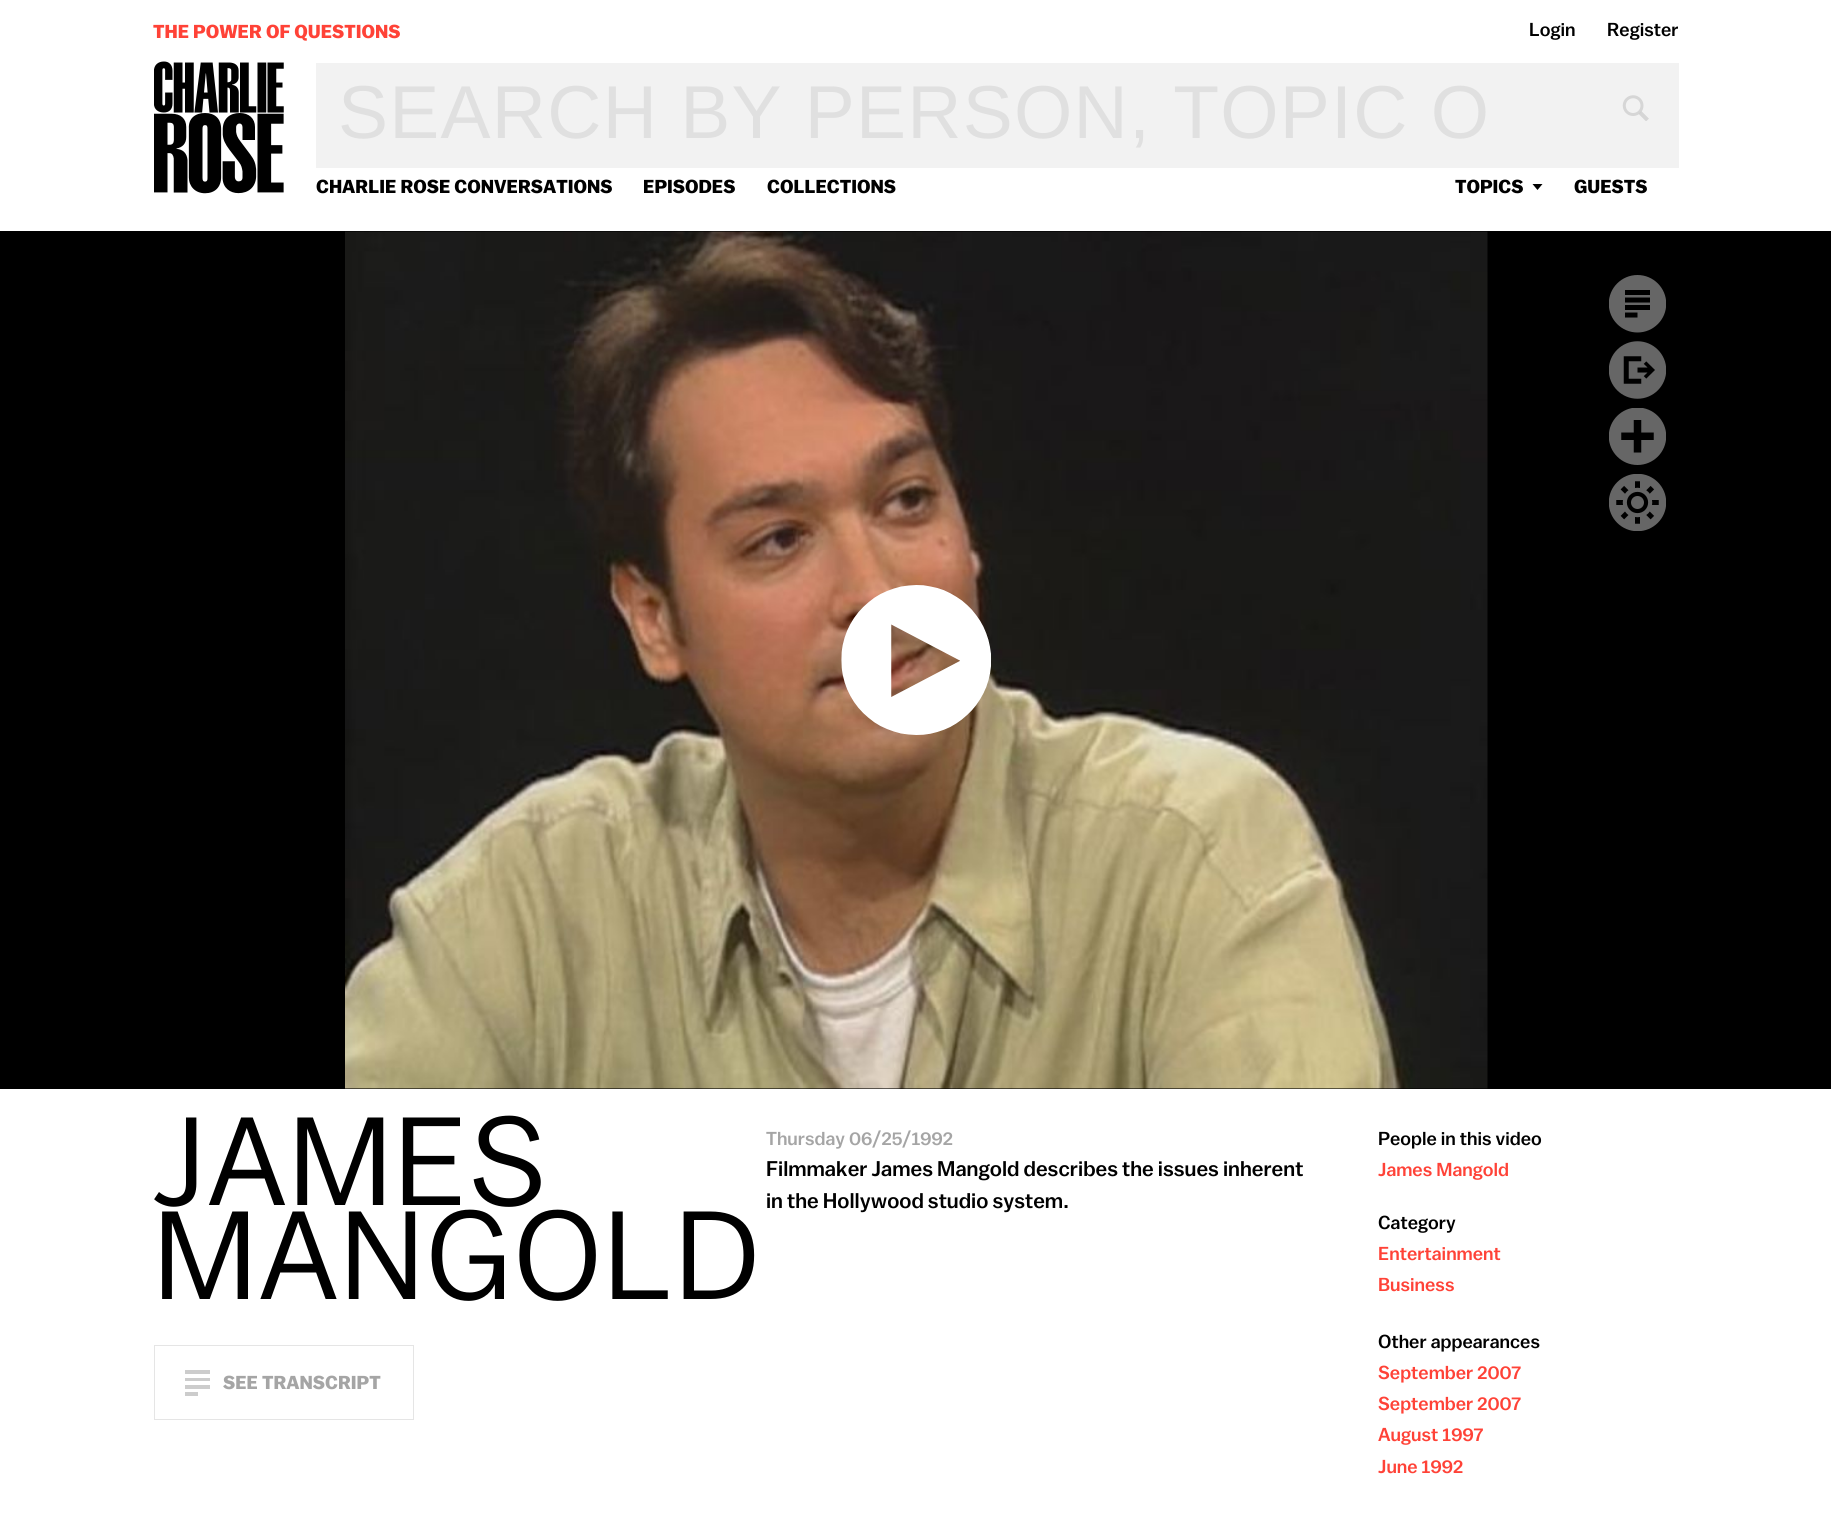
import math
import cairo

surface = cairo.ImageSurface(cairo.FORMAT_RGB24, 1831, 1521)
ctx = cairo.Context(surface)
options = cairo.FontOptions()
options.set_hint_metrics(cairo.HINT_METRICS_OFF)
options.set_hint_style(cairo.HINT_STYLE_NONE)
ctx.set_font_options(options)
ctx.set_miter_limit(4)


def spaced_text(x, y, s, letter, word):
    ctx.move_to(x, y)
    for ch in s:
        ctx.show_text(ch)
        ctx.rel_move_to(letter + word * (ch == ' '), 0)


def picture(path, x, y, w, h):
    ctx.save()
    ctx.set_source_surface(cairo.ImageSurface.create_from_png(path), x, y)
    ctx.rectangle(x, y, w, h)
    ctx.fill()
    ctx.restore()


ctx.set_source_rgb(1, 1, 1)
ctx.paint()
ctx.select_font_face("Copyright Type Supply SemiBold")
ctx.set_font_size(18.75)
ctx.set_source_rgb(1, 0.259, 0.216)
ctx.move_to(153, 38)
ctx.show_text("THE POWER OF QUESTIONS")
ctx.select_font_face("Copyright Type Supply Medium")
ctx.set_source_rgb(0, 0, 0)
ctx.move_to(1529, 36)
ctx.show_text("Login")
ctx.move_to(1607, 36)
ctx.show_text("Register")
ctx.select_font_face("Copyright Type Supply SemiBold")
ctx.move_to(316, 193)
ctx.show_text("CHARLIE ROSE CONVERSATIONS")
ctx.move_to(643, 193)
ctx.show_text("EPISODES")
ctx.move_to(767, 193)
ctx.show_text("COLLECTIONS")
ctx.move_to(1455, 193)
ctx.show_text("TOPICS")
ctx.new_path()
ctx.move_to(1532.5, 184)
ctx.line_to(1542.5, 184)
ctx.line_to(1537.5, 190)
ctx.close_path()
ctx.fill()
ctx.move_to(1574, 193)
ctx.show_text("GUESTS")
picture("img1.png", 154, 61, 130, 133)
ctx.set_source_rgb(0.949, 0.949, 0.949)
ctx.rectangle(316, 63, 1363, 105)
ctx.fill()
ctx.select_font_face("Liberation Sans")
ctx.set_font_size(75)
ctx.set_source_rgb(0.878, 0.878, 0.878)
spaced_text(338, 138, "SEARCH BY PERSON, TOPIC O", 1.25, 0)
picture("img2.png", 1622, 95, 27, 26)
ctx.set_source_rgb(0, 0, 0)
ctx.rectangle(0, 231, 1831, 858)
ctx.fill()
picture("img3.png", 345, 231, 1143, 858)
picture("img4.png", 1609, 275, 57, 58)
picture("img5.png", 1609, 341, 57, 58)
picture("img6.png", 1609, 408, 57, 57)
picture("img7.png", 1609, 474, 57, 57)
ctx.select_font_face("Copyright Type Supply")
ctx.set_font_size(125)
spaced_text(153, 1205, "JAMES", 1.25, 0)
spaced_text(153, 1299, "MANGOLD", 1.25, 0)
ctx.set_source_rgb(0.8, 0.8, 0.8)
ctx.new_path()
ctx.move_to(669, 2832)
ctx.line_to(694, 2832)
ctx.line_to(694, 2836)
ctx.line_to(669, 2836)
ctx.close_path()
ctx.move_to(669, 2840)
ctx.line_to(694, 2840)
ctx.line_to(694, 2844)
ctx.line_to(669, 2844)
ctx.close_path()
ctx.move_to(669, 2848)
ctx.line_to(694, 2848)
ctx.line_to(694, 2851)
ctx.line_to(669, 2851)
ctx.close_path()
ctx.move_to(669, 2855)
ctx.line_to(681, 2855)
ctx.line_to(681, 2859)
ctx.line_to(669, 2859)
ctx.close_path()
ctx.move_to(185, 1370)
ctx.line_to(210, 1370)
ctx.line_to(210, 1374)
ctx.line_to(185, 1374)
ctx.close_path()
ctx.move_to(185, 1378)
ctx.line_to(210, 1378)
ctx.line_to(210, 1381)
ctx.line_to(185, 1381)
ctx.close_path()
ctx.move_to(185, 1385)
ctx.line_to(210, 1385)
ctx.line_to(210, 1389)
ctx.line_to(185, 1389)
ctx.close_path()
ctx.move_to(185, 1392)
ctx.line_to(198, 1392)
ctx.line_to(198, 1396)
ctx.line_to(185, 1396)
ctx.close_path()
ctx.fill()
ctx.rectangle(154.5, 1345.5, 259, 74)
ctx.set_source_rgb(0.898, 0.898, 0.898)
ctx.set_line_width(1)
ctx.stroke()
ctx.select_font_face("Copyright Type Supply SemiBold")
ctx.set_font_size(18.75)
ctx.set_source_rgb(0.647, 0.647, 0.647)
ctx.move_to(223, 1389)
ctx.show_text("SEE TRANSCRIPT")
ctx.select_font_face("Copyright Type Supply Medium")
ctx.move_to(766, 1145)
ctx.show_text("Thursday 06/25/1992")
ctx.set_font_size(21.25)
ctx.set_source_rgb(0, 0, 0)
spaced_text(766, 1176, "Filmmaker James Mangold describes the issues inherent", 0, -0.5)
spaced_text(766, 1208, "in the Hollywood studio system.", 0, -0.5)
ctx.set_font_size(18.75)
ctx.move_to(1378, 1145)
ctx.show_text("People in this video")
ctx.set_source_rgb(1, 0.259, 0.216)
ctx.move_to(1378, 1176)
ctx.show_text("James Mangold")
ctx.set_source_rgb(0, 0, 0)
ctx.move_to(1378, 1229)
ctx.show_text("Category")
ctx.set_source_rgb(1, 0.259, 0.216)
ctx.move_to(1378, 1260)
ctx.show_text("Entertainment")
ctx.move_to(1378, 1291)
ctx.show_text("Business")
ctx.set_source_rgb(0, 0, 0)
ctx.move_to(1378, 1348)
ctx.show_text("Other appearances")
ctx.set_source_rgb(1, 0.259, 0.216)
ctx.move_to(1378, 1379)
ctx.show_text("September 2007")
ctx.move_to(1378, 1410)
ctx.show_text("September 2007")
ctx.move_to(1378, 1441)
ctx.show_text("August 1997")
ctx.move_to(1378, 1473)
ctx.show_text("June 1992")
surface.write_to_png("page.png")
